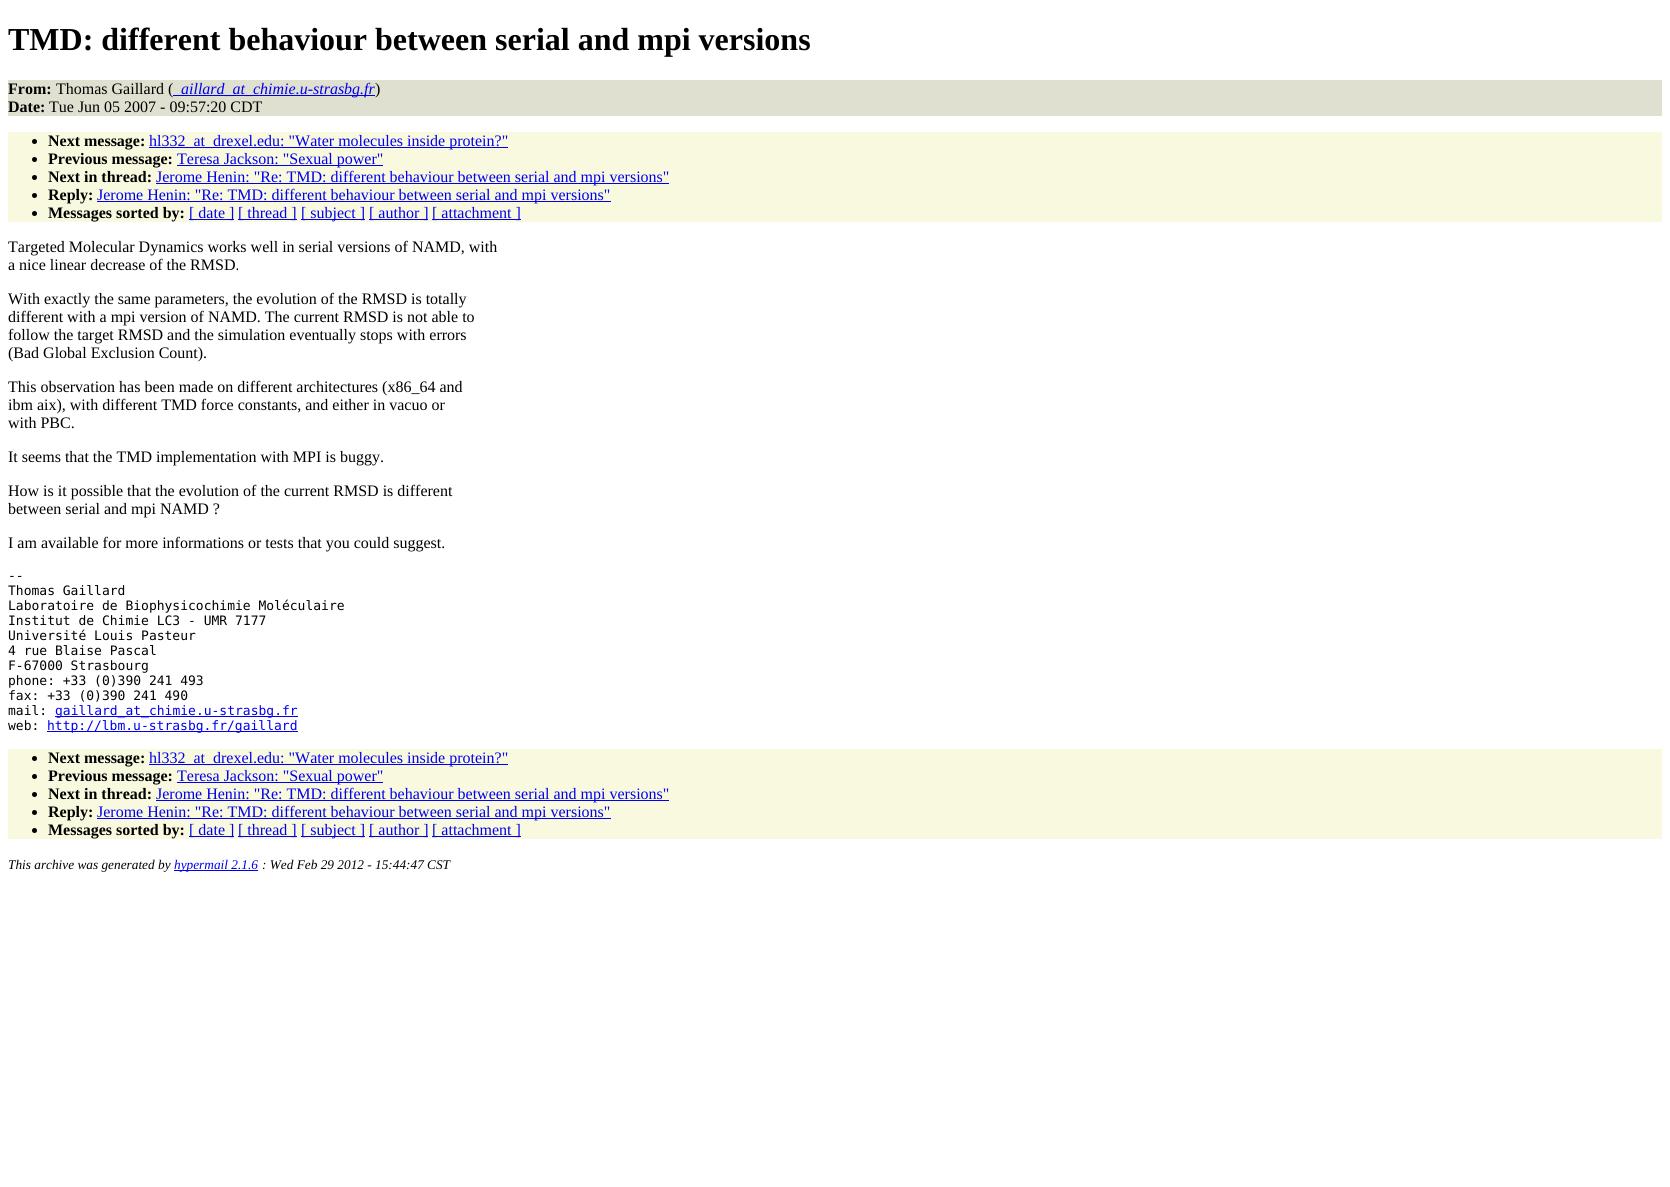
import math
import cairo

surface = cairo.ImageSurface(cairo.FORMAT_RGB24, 1670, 1187)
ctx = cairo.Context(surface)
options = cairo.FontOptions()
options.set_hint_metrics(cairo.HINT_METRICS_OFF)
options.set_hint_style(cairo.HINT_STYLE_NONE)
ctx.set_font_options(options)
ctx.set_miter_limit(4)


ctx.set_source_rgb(1, 1, 1)
ctx.paint()
ctx.select_font_face("Liberation Serif", cairo.FONT_SLANT_NORMAL, cairo.FONT_WEIGHT_BOLD)
ctx.set_font_size(32)
ctx.set_source_rgb(0, 0, 0)
ctx.move_to(8, 50)
ctx.show_text("TMD: different behaviour between serial and mpi versions")
ctx.set_source_rgb(0.878, 0.878, 0.816)
ctx.rectangle(8, 80, 1654, 36)
ctx.fill()
ctx.set_font_size(16)
ctx.set_source_rgb(0, 0, 0)
ctx.move_to(8, 94)
ctx.show_text("From:")
ctx.select_font_face("Liberation Serif")
ctx.move_to(56, 94)
ctx.show_text("Thomas Gaillard (")
ctx.set_source_rgb(0, 0, 0.933)
ctx.rectangle(173, 95, 202, 1)
ctx.fill()
ctx.select_font_face("Liberation Serif", cairo.FONT_SLANT_ITALIC)
ctx.move_to(181, 94)
ctx.show_text("aillard_at_chimie.u-strasbg.fr")
ctx.select_font_face("Liberation Serif")
ctx.set_source_rgb(0, 0, 0)
ctx.move_to(375, 94)
ctx.show_text(")")
ctx.select_font_face("Liberation Serif", cairo.FONT_SLANT_NORMAL, cairo.FONT_WEIGHT_BOLD)
ctx.move_to(8, 112)
ctx.show_text("Date:")
ctx.select_font_face("Liberation Serif")
ctx.move_to(49, 112)
ctx.show_text("Tue Jun 05 2007 - 09:57:20 CDT")
ctx.set_source_rgb(0.973, 0.973, 0.878)
ctx.rectangle(8, 132, 1654, 90)
ctx.fill()
ctx.set_source_rgb(0, 0, 0)
ctx.arc(34.5, 141.5, 2.5, 0, 2 * math.pi)
ctx.fill()
ctx.select_font_face("Liberation Serif", cairo.FONT_SLANT_NORMAL, cairo.FONT_WEIGHT_BOLD)
ctx.move_to(48, 146)
ctx.show_text("Next message:")
ctx.set_source_rgb(0, 0, 0.933)
ctx.rectangle(149, 147, 359, 1)
ctx.fill()
ctx.select_font_face("Liberation Serif")
ctx.move_to(149, 146)
ctx.show_text("hl332_at_drexel.edu: \"Water molecules inside protein?\"")
ctx.set_source_rgb(0, 0, 0)
ctx.new_path()
ctx.arc(34.5, 159.5, 2.5, 0, 2 * math.pi)
ctx.fill()
ctx.select_font_face("Liberation Serif", cairo.FONT_SLANT_NORMAL, cairo.FONT_WEIGHT_BOLD)
ctx.move_to(48, 164)
ctx.show_text("Previous message:")
ctx.set_source_rgb(0, 0, 0.933)
ctx.rectangle(177, 165, 206, 1)
ctx.fill()
ctx.select_font_face("Liberation Serif")
ctx.move_to(177, 164)
ctx.show_text("Teresa Jackson: \"Sexual power\"")
ctx.set_source_rgb(0, 0, 0)
ctx.new_path()
ctx.arc(34.5, 177.5, 2.5, 0, 2 * math.pi)
ctx.fill()
ctx.select_font_face("Liberation Serif", cairo.FONT_SLANT_NORMAL, cairo.FONT_WEIGHT_BOLD)
ctx.move_to(48, 182)
ctx.show_text("Next in thread:")
ctx.set_source_rgb(0, 0, 0.933)
ctx.rectangle(156, 183, 513, 1)
ctx.fill()
ctx.select_font_face("Liberation Serif")
ctx.move_to(156, 182)
ctx.show_text("Jerome Henin: \"Re: TMD: different behaviour between serial and mpi versions\"")
ctx.set_source_rgb(0, 0, 0)
ctx.new_path()
ctx.arc(34.5, 195.5, 2.5, 0, 2 * math.pi)
ctx.fill()
ctx.select_font_face("Liberation Serif", cairo.FONT_SLANT_NORMAL, cairo.FONT_WEIGHT_BOLD)
ctx.move_to(48, 200)
ctx.show_text("Reply:")
ctx.set_source_rgb(0, 0, 0.933)
ctx.rectangle(97, 201, 514, 1)
ctx.fill()
ctx.select_font_face("Liberation Serif")
ctx.move_to(97, 200)
ctx.show_text("Jerome Henin: \"Re: TMD: different behaviour between serial and mpi versions\"")
ctx.set_source_rgb(0, 0, 0)
ctx.new_path()
ctx.arc(34.5, 213.5, 2.5, 0, 2 * math.pi)
ctx.fill()
ctx.select_font_face("Liberation Serif", cairo.FONT_SLANT_NORMAL, cairo.FONT_WEIGHT_BOLD)
ctx.move_to(48, 218)
ctx.show_text("Messages sorted by:")
ctx.set_source_rgb(0, 0, 0.933)
ctx.rectangle(189, 219, 45, 1)
ctx.fill()
ctx.select_font_face("Liberation Serif")
ctx.move_to(189, 218)
ctx.show_text("[ date ]")
ctx.rectangle(238, 219, 59, 1)
ctx.fill()
ctx.move_to(238, 218)
ctx.show_text("[ thread ]")
ctx.rectangle(301, 219, 64, 1)
ctx.fill()
ctx.move_to(301, 218)
ctx.show_text("[ subject ]")
ctx.rectangle(369, 219, 59, 1)
ctx.fill()
ctx.move_to(369, 218)
ctx.show_text("[ author ]")
ctx.rectangle(432, 219, 89, 1)
ctx.fill()
ctx.move_to(432, 218)
ctx.show_text("[ attachment ]")
ctx.set_source_rgb(0, 0, 0)
ctx.move_to(8, 252)
ctx.show_text("Targeted Molecular Dynamics works well in serial versions of NAMD, with")
ctx.move_to(8, 270)
ctx.show_text("a nice linear decrease of the RMSD.")
ctx.move_to(8, 304)
ctx.show_text("With exactly the same parameters, the evolution of the RMSD is totally")
ctx.move_to(8, 322)
ctx.show_text("different with a mpi version of NAMD. The current RMSD is not able to")
ctx.move_to(8, 340)
ctx.show_text("follow the target RMSD and the simulation eventually stops with errors")
ctx.move_to(8, 358)
ctx.show_text("(Bad Global Exclusion Count).")
ctx.move_to(8, 392)
ctx.show_text("This observation has been made on different architectures (x86_64 and")
ctx.move_to(8, 410)
ctx.show_text("ibm aix), with different TMD force constants, and either in vacuo or")
ctx.move_to(8, 428)
ctx.show_text("with PBC.")
ctx.move_to(8, 462)
ctx.show_text("It seems that the TMD implementation with MPI is buggy.")
ctx.move_to(8, 496)
ctx.show_text("How is it possible that the evolution of the current RMSD is different")
ctx.move_to(8, 514)
ctx.show_text("between serial and mpi NAMD ?")
ctx.move_to(8, 548)
ctx.show_text("I am available for more informations or tests that you could suggest.")
ctx.select_font_face("DejaVu Sans Mono")
ctx.set_font_size(13)
ctx.move_to(8, 580)
ctx.show_text("--")
ctx.move_to(8, 595)
ctx.show_text("Thomas Gaillard")
ctx.move_to(8, 610)
ctx.show_text("Laboratoire de Biophysicochimie Moléculaire")
ctx.move_to(8, 625)
ctx.show_text("Institut de Chimie LC3 - UMR 7177")
ctx.move_to(8, 640)
ctx.show_text("Université Louis Pasteur")
ctx.move_to(8, 655)
ctx.show_text("4 rue Blaise Pascal")
ctx.move_to(8, 670)
ctx.show_text("F-67000 Strasbourg")
ctx.move_to(8, 685)
ctx.show_text("phone: +33 (0)390 241 493")
ctx.move_to(8, 700)
ctx.show_text("fax: +33 (0)390 241 490")
ctx.move_to(8, 715)
ctx.show_text("mail:")
ctx.set_source_rgb(0, 0, 0.933)
ctx.rectangle(55, 716, 243, 1)
ctx.fill()
ctx.move_to(55, 715)
ctx.show_text("gaillard_at_chimie.u-strasbg.fr")
ctx.set_source_rgb(0, 0, 0)
ctx.move_to(8, 730)
ctx.show_text("web:")
ctx.set_source_rgb(0, 0, 0.933)
ctx.rectangle(47, 731, 251, 1)
ctx.fill()
ctx.move_to(47, 730)
ctx.show_text("http://lbm.u-strasbg.fr/gaillard")
ctx.set_source_rgb(0.973, 0.973, 0.878)
ctx.rectangle(8, 749, 1654, 90)
ctx.fill()
ctx.set_source_rgb(0, 0, 0)
ctx.arc(34.5, 758.5, 2.5, 0, 2 * math.pi)
ctx.fill()
ctx.select_font_face("Liberation Serif", cairo.FONT_SLANT_NORMAL, cairo.FONT_WEIGHT_BOLD)
ctx.set_font_size(16)
ctx.move_to(48, 763)
ctx.show_text("Next message:")
ctx.set_source_rgb(0, 0, 0.933)
ctx.rectangle(149, 764, 359, 1)
ctx.fill()
ctx.select_font_face("Liberation Serif")
ctx.move_to(149, 763)
ctx.show_text("hl332_at_drexel.edu: \"Water molecules inside protein?\"")
ctx.set_source_rgb(0, 0, 0)
ctx.new_path()
ctx.arc(34.5, 776.5, 2.5, 0, 2 * math.pi)
ctx.fill()
ctx.select_font_face("Liberation Serif", cairo.FONT_SLANT_NORMAL, cairo.FONT_WEIGHT_BOLD)
ctx.move_to(48, 781)
ctx.show_text("Previous message:")
ctx.set_source_rgb(0, 0, 0.933)
ctx.rectangle(177, 782, 206, 1)
ctx.fill()
ctx.select_font_face("Liberation Serif")
ctx.move_to(177, 781)
ctx.show_text("Teresa Jackson: \"Sexual power\"")
ctx.set_source_rgb(0, 0, 0)
ctx.new_path()
ctx.arc(34.5, 794.5, 2.5, 0, 2 * math.pi)
ctx.fill()
ctx.select_font_face("Liberation Serif", cairo.FONT_SLANT_NORMAL, cairo.FONT_WEIGHT_BOLD)
ctx.move_to(48, 799)
ctx.show_text("Next in thread:")
ctx.set_source_rgb(0, 0, 0.933)
ctx.rectangle(156, 800, 513, 1)
ctx.fill()
ctx.select_font_face("Liberation Serif")
ctx.move_to(156, 799)
ctx.show_text("Jerome Henin: \"Re: TMD: different behaviour between serial and mpi versions\"")
ctx.set_source_rgb(0, 0, 0)
ctx.new_path()
ctx.arc(34.5, 812.5, 2.5, 0, 2 * math.pi)
ctx.fill()
ctx.select_font_face("Liberation Serif", cairo.FONT_SLANT_NORMAL, cairo.FONT_WEIGHT_BOLD)
ctx.move_to(48, 817)
ctx.show_text("Reply:")
ctx.set_source_rgb(0, 0, 0.933)
ctx.rectangle(97, 818, 514, 1)
ctx.fill()
ctx.select_font_face("Liberation Serif")
ctx.move_to(97, 817)
ctx.show_text("Jerome Henin: \"Re: TMD: different behaviour between serial and mpi versions\"")
ctx.set_source_rgb(0, 0, 0)
ctx.new_path()
ctx.arc(34.5, 830.5, 2.5, 0, 2 * math.pi)
ctx.fill()
ctx.select_font_face("Liberation Serif", cairo.FONT_SLANT_NORMAL, cairo.FONT_WEIGHT_BOLD)
ctx.move_to(48, 835)
ctx.show_text("Messages sorted by:")
ctx.set_source_rgb(0, 0, 0.933)
ctx.rectangle(189, 836, 45, 1)
ctx.fill()
ctx.select_font_face("Liberation Serif")
ctx.move_to(189, 835)
ctx.show_text("[ date ]")
ctx.rectangle(238, 836, 59, 1)
ctx.fill()
ctx.move_to(238, 835)
ctx.show_text("[ thread ]")
ctx.rectangle(301, 836, 64, 1)
ctx.fill()
ctx.move_to(301, 835)
ctx.show_text("[ subject ]")
ctx.rectangle(369, 836, 59, 1)
ctx.fill()
ctx.move_to(369, 835)
ctx.show_text("[ author ]")
ctx.rectangle(432, 836, 89, 1)
ctx.fill()
ctx.move_to(432, 835)
ctx.show_text("[ attachment ]")
ctx.select_font_face("Liberation Serif", cairo.FONT_SLANT_ITALIC)
ctx.set_font_size(13.3)
ctx.set_source_rgb(0, 0, 0)
ctx.move_to(8, 869)
ctx.show_text("This archive was generated by")
ctx.set_source_rgb(0, 0, 0.933)
ctx.rectangle(174, 870, 84, 1)
ctx.fill()
ctx.move_to(174, 869)
ctx.show_text("hypermail 2.1.6")
ctx.set_source_rgb(0, 0, 0)
ctx.move_to(262, 869)
ctx.show_text(": Wed Feb 29 2012 - 15:44:47 CST")
surface.write_to_png("page.png")
